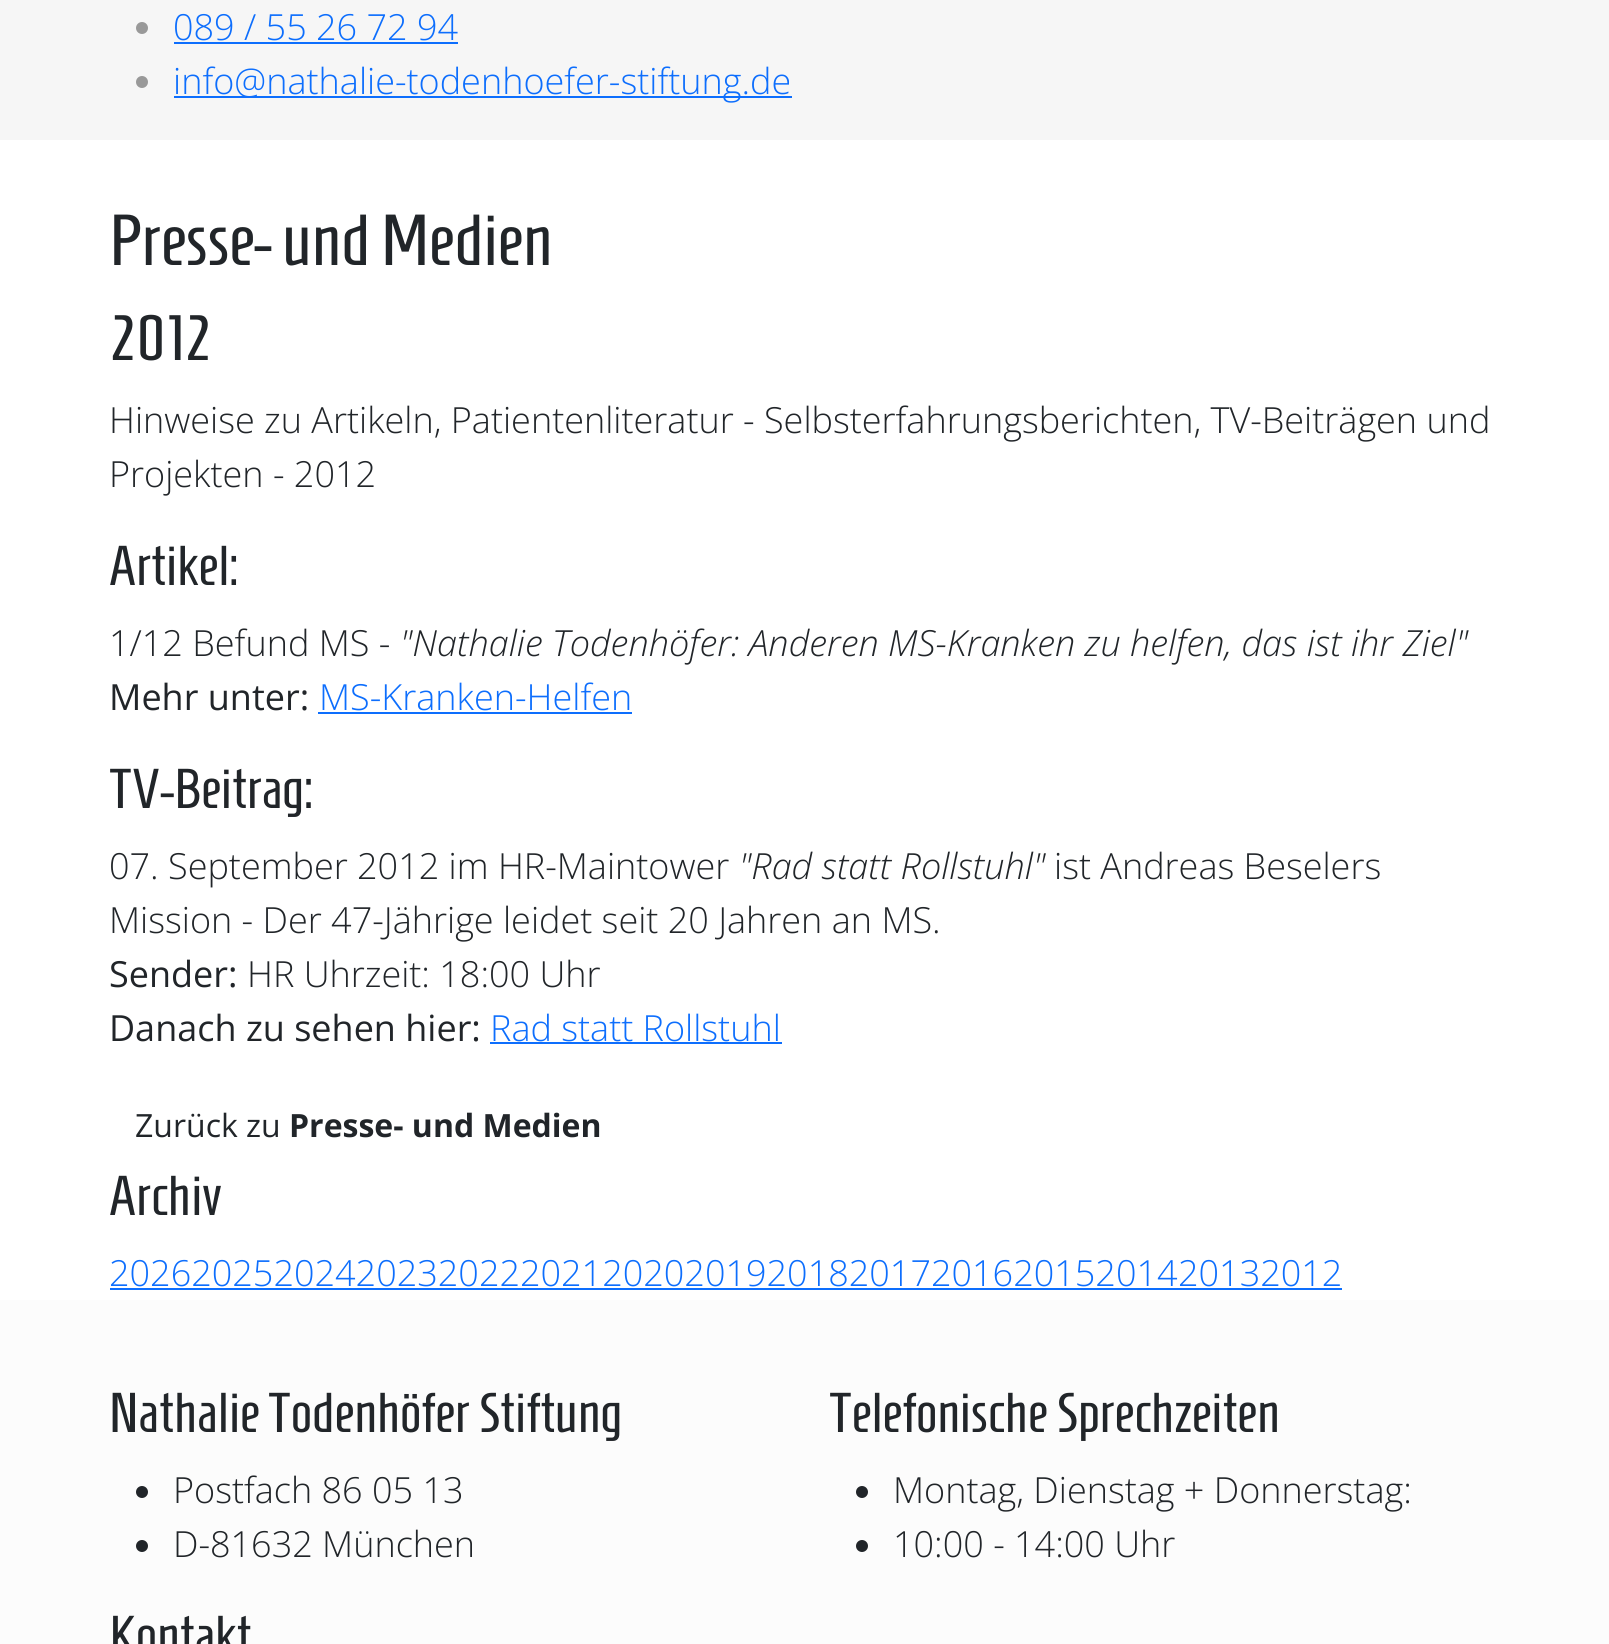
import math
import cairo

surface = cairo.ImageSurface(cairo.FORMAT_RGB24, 1609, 1644)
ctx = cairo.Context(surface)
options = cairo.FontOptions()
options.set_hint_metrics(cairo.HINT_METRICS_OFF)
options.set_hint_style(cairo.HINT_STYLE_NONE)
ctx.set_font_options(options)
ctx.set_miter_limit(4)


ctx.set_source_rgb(1, 1, 1)
ctx.paint()
ctx.set_source_rgb(0.961, 0.961, 0.961)
ctx.rectangle(0, 0, 1609, 140)
ctx.fill()
ctx.set_source_rgb(0.6, 0.6, 0.6)
ctx.arc(142, 28, 6, 0, 2 * math.pi)
ctx.fill()
ctx.select_font_face("Open Sans Light")
ctx.set_font_size(36)
ctx.set_source_rgb(0.051, 0.431, 0.992)
ctx.move_to(173, 40)
ctx.show_text("089 / 55 26 72 94")
ctx.rectangle(174, 42, 284, 2)
ctx.fill()
ctx.set_source_rgb(0.6, 0.6, 0.6)
ctx.arc(142, 82, 6, 0, 2 * math.pi)
ctx.fill()
ctx.set_source_rgb(0.051, 0.431, 0.992)
ctx.rectangle(174, 96, 618, 2)
ctx.fill()
ctx.move_to(173, 94)
ctx.show_text("info@nathalie-todenhoefer-stiftung.de")
ctx.select_font_face("Homenaje")
ctx.set_font_size(72)
ctx.set_source_rgb(0.129, 0.145, 0.161)
ctx.move_to(109, 265)
ctx.show_text("Presse- und Medien")
ctx.set_font_size(64)
ctx.move_to(109, 360)
ctx.show_text("2012")
ctx.select_font_face("Open Sans Light")
ctx.set_font_size(36)
ctx.move_to(109, 433)
ctx.show_text("Hinweise zu Artikeln, Patientenliteratur - Selbsterfahrungsberichten, TV-Beiträgen und")
ctx.move_to(109, 487)
ctx.show_text("Projekten - 2012")
ctx.select_font_face("Homenaje")
ctx.set_font_size(56)
ctx.move_to(109, 585)
ctx.show_text("Artikel:")
ctx.select_font_face("Open Sans Light")
ctx.set_font_size(36)
ctx.move_to(109, 656)
ctx.show_text("1/12 Befund MS -")
ctx.select_font_face("Open Sans Light", cairo.FONT_SLANT_ITALIC)
ctx.move_to(400, 656)
ctx.show_text("\"Nathalie Todenhöfer: Anderen MS-Kranken zu helfen, das ist ihr Ziel\"")
ctx.select_font_face("Open Sans")
ctx.move_to(109, 710)
ctx.show_text("Mehr unter:")
ctx.select_font_face("Open Sans Light")
ctx.set_source_rgb(0.051, 0.431, 0.992)
ctx.move_to(319, 710)
ctx.show_text("MS-Kranken-Helfen")
ctx.rectangle(318, 712, 314, 2)
ctx.fill()
ctx.select_font_face("Homenaje")
ctx.set_font_size(56)
ctx.set_source_rgb(0.129, 0.145, 0.161)
ctx.move_to(109, 808)
ctx.show_text("TV-Beitrag:")
ctx.select_font_face("Open Sans Light")
ctx.set_font_size(36)
ctx.move_to(109, 879)
ctx.show_text("07. September 2012 im HR-Maintower")
ctx.select_font_face("Open Sans Light", cairo.FONT_SLANT_ITALIC)
ctx.move_to(739, 879)
ctx.show_text("\"Rad statt Rollstuhl\"")
ctx.select_font_face("Open Sans Light")
ctx.move_to(1054, 879)
ctx.show_text("ist Andreas Beselers")
ctx.move_to(109, 933)
ctx.show_text("Mission - Der 47-Jährige leidet seit 20 Jahren an MS.")
ctx.select_font_face("Open Sans")
ctx.move_to(109, 987)
ctx.show_text("Sender:")
ctx.select_font_face("Open Sans Light")
ctx.move_to(247, 987)
ctx.show_text("HR Uhrzeit: 18:00 Uhr")
ctx.select_font_face("Open Sans")
ctx.move_to(109, 1041)
ctx.show_text("Danach zu sehen hier:")
ctx.select_font_face("Open Sans Light")
ctx.set_source_rgb(0.051, 0.431, 0.992)
ctx.move_to(490, 1041)
ctx.show_text("Rad statt Rollstuhl")
ctx.rectangle(490, 1042, 292, 2)
ctx.fill()
ctx.select_font_face("Open Sans")
ctx.set_font_size(32)
ctx.set_source_rgb(0.129, 0.145, 0.161)
ctx.move_to(135, 1137)
ctx.show_text("Zurück zu")
ctx.select_font_face("Open Sans", cairo.FONT_SLANT_NORMAL, cairo.FONT_WEIGHT_BOLD)
ctx.move_to(289, 1137)
ctx.show_text("Presse- und Medien")
ctx.select_font_face("Homenaje")
ctx.set_font_size(56)
ctx.move_to(109, 1215)
ctx.show_text("Archiv")
ctx.select_font_face("Open Sans Light")
ctx.set_font_size(36)
ctx.set_source_rgb(0.051, 0.431, 0.992)
ctx.move_to(109, 1286)
ctx.show_text("2026202520242023202220212020201920182017201620152014")
ctx.rectangle(110, 1288, 1232, 2)
ctx.fill()
ctx.move_to(1178, 1286)
ctx.show_text("20132012")
ctx.set_source_rgb(0.988, 0.988, 0.988)
ctx.rectangle(0, 1300, 1609, 344)
ctx.fill()
ctx.select_font_face("Homenaje")
ctx.set_font_size(56)
ctx.set_source_rgb(0.129, 0.145, 0.161)
ctx.move_to(109, 1432)
ctx.show_text("Nathalie Todenhöfer Stiftung")
ctx.new_path()
ctx.arc(142, 1492, 6, 0, 2 * math.pi)
ctx.fill()
ctx.select_font_face("Open Sans Light")
ctx.set_font_size(36)
ctx.move_to(173, 1503)
ctx.show_text("Postfach 86 05 13")
ctx.new_path()
ctx.arc(142, 1546, 6, 0, 2 * math.pi)
ctx.fill()
ctx.move_to(173, 1557)
ctx.show_text("D-81632 München")
ctx.select_font_face("Homenaje")
ctx.set_font_size(56)
ctx.move_to(829, 1432)
ctx.show_text("Telefonische Sprechzeiten")
ctx.new_path()
ctx.arc(862, 1492, 6, 0, 2 * math.pi)
ctx.fill()
ctx.select_font_face("Open Sans Light")
ctx.set_font_size(36)
ctx.move_to(893, 1503)
ctx.show_text("Montag, Dienstag + Donnerstag:")
ctx.new_path()
ctx.arc(862, 1546, 6, 0, 2 * math.pi)
ctx.fill()
ctx.move_to(893, 1557)
ctx.show_text("10:00 - 14:00 Uhr")
ctx.select_font_face("Homenaje")
ctx.set_font_size(56)
ctx.move_to(109, 1655)
ctx.show_text("Kontakt")
surface.write_to_png("page.png")
